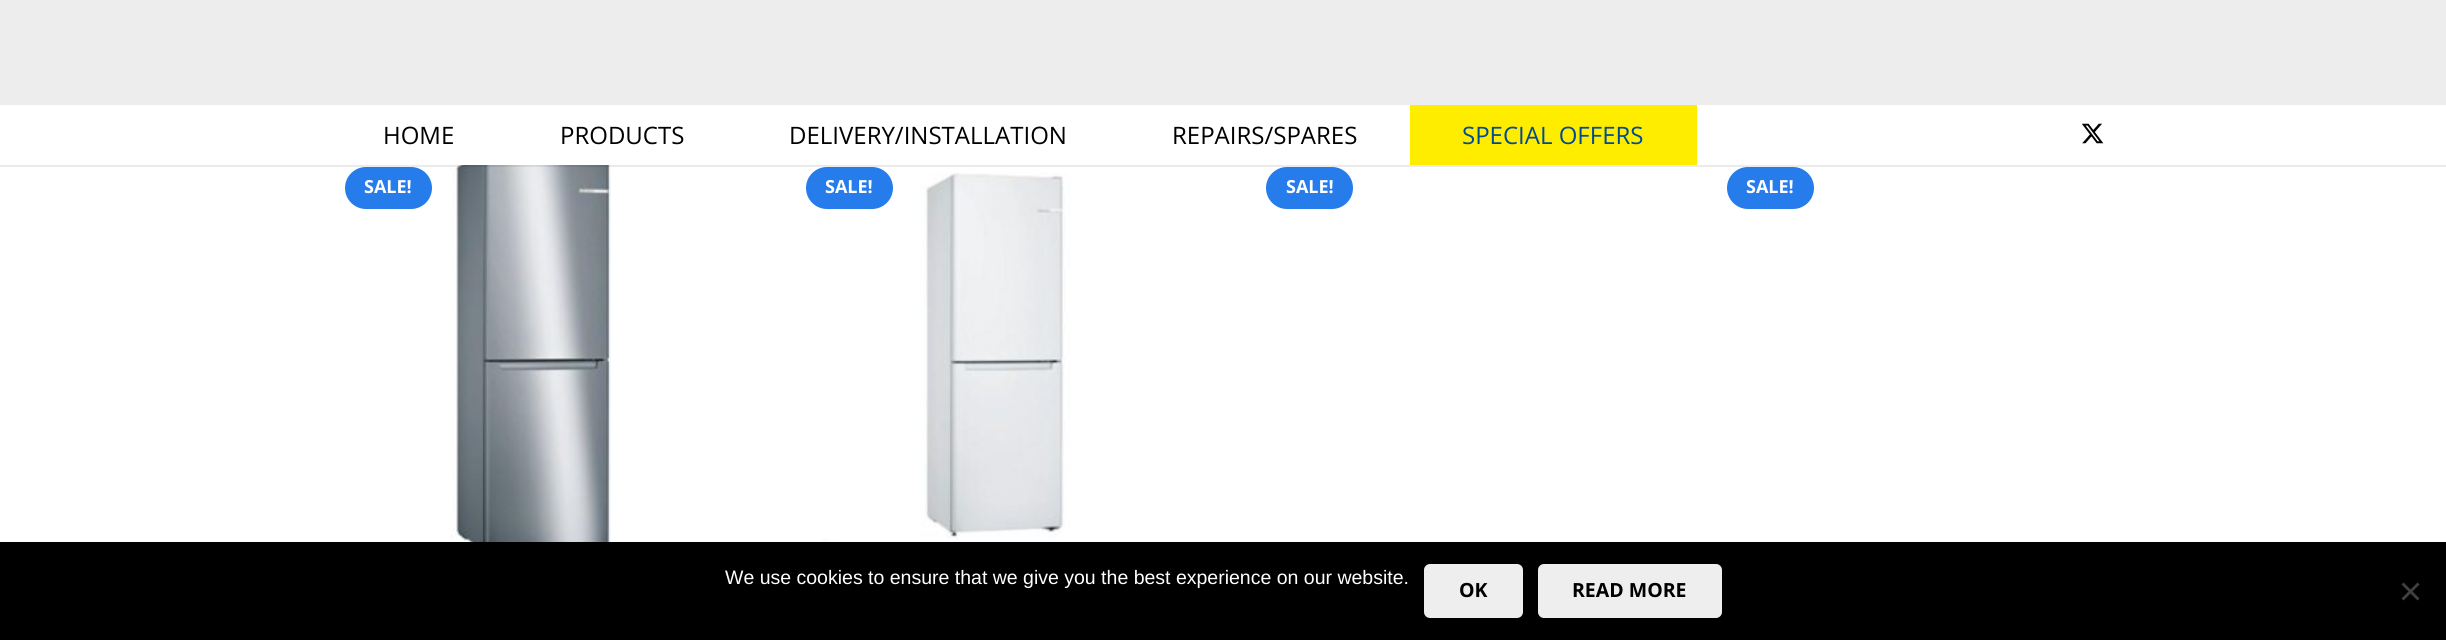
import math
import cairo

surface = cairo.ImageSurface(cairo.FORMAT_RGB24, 2446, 640)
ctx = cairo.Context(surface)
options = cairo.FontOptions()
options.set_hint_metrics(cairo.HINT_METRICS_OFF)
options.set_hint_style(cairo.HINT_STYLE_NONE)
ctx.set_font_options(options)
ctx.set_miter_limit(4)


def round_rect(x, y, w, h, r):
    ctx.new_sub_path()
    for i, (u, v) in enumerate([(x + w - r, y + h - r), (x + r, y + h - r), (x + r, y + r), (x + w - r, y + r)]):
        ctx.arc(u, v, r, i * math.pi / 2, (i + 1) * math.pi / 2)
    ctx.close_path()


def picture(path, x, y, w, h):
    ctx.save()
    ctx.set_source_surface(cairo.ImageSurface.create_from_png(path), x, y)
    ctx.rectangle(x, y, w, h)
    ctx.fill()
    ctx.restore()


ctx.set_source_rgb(1, 1, 1)
ctx.paint()
ctx.set_source_rgb(0.929, 0.929, 0.929)
ctx.rectangle(0, 0, 2446, 105)
ctx.fill()
picture("img2.png", 449, 165, 162, 377)
ctx.set_source_rgba(0, 0, 0, 0.08)
ctx.new_path()
ctx.move_to(0, 165)
ctx.line_to(0, 167)
ctx.line_to(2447, 167)
ctx.line_to(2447, 107)
ctx.line_to(2446, 107)
ctx.line_to(2446, 165)
ctx.close_path()
ctx.fill()
ctx.select_font_face("Open Sans")
ctx.set_font_size(24)
ctx.set_source_rgb(0, 0, 0)
ctx.move_to(383, 144)
ctx.show_text("HOME")
ctx.move_to(560, 144)
ctx.show_text("PRODUCTS")
ctx.move_to(789, 144)
ctx.show_text("DELIVERY/INSTALLATION")
ctx.move_to(1172, 144)
ctx.show_text("REPAIRS/SPARES")
ctx.set_source_rgb(1, 0.929, 0)
ctx.rectangle(1410, 105, 287, 60)
ctx.fill()
ctx.set_source_rgb(0.004, 0.29, 0.58)
ctx.move_to(1462, 144)
ctx.show_text("SPECIAL OFFERS")
picture("img1.png", 2081, 123, 23, 21)
ctx.set_source_rgb(0.153, 0.486, 0.918)
round_rect(345, 167, 87, 42, 21)
ctx.fill()
ctx.select_font_face("Open Sans", cairo.FONT_SLANT_NORMAL, cairo.FONT_WEIGHT_BOLD)
ctx.set_font_size(18)
ctx.set_source_rgb(1, 1, 1)
ctx.move_to(364, 193)
ctx.show_text("SALE!")
picture("img3.png", 822, 172, 249, 370)
ctx.set_source_rgb(0.153, 0.486, 0.918)
round_rect(806, 167, 87, 42, 21)
ctx.fill()
ctx.set_source_rgb(1, 1, 1)
ctx.move_to(825, 193)
ctx.show_text("SALE!")
ctx.set_source_rgb(0.153, 0.486, 0.918)
round_rect(1266, 167, 87, 42, 21)
ctx.fill()
ctx.set_source_rgb(1, 1, 1)
ctx.move_to(1286, 193)
ctx.show_text("SALE!")
ctx.set_source_rgb(0.153, 0.486, 0.918)
round_rect(1727, 167, 87, 42, 21)
ctx.fill()
ctx.set_source_rgb(1, 1, 1)
ctx.move_to(1746, 193)
ctx.show_text("SALE!")
ctx.set_source_rgb(0, 0, 0)
ctx.rectangle(0, 542, 2446, 98)
ctx.fill()
ctx.select_font_face("Liberation Sans")
ctx.set_font_size(19.5)
ctx.set_source_rgb(1, 1, 1)
ctx.move_to(725, 584)
ctx.show_text("We use cookies to ensure that we give you the best experience on our website.")
ctx.set_source_rgb(0.933, 0.933, 0.933)
round_rect(1424, 564, 99, 54, 6)
ctx.fill()
ctx.select_font_face("Open Sans", cairo.FONT_SLANT_NORMAL, cairo.FONT_WEIGHT_BOLD)
ctx.set_source_rgb(0, 0, 0)
ctx.move_to(1459, 597)
ctx.show_text("OK")
ctx.set_source_rgb(0.933, 0.933, 0.933)
round_rect(1538, 564, 184, 54, 6)
ctx.fill()
ctx.set_source_rgb(0, 0, 0)
ctx.move_to(1572, 597)
ctx.show_text("READ MORE")
ctx.set_source_rgb(0.251, 0.251, 0.251)
ctx.new_path()
ctx.move_to(2417.5, 582.5)
ctx.line_to(2419.5, 584.5)
ctx.line_to(2403.5, 600.5)
ctx.line_to(2401.5, 598.5)
ctx.close_path()
ctx.fill()
ctx.new_path()
ctx.move_to(2401.5, 584.5)
ctx.line_to(2403.5, 582.5)
ctx.line_to(2419.5, 598.5)
ctx.line_to(2417.5, 600.5)
ctx.close_path()
ctx.fill()
surface.write_to_png("page.png")
